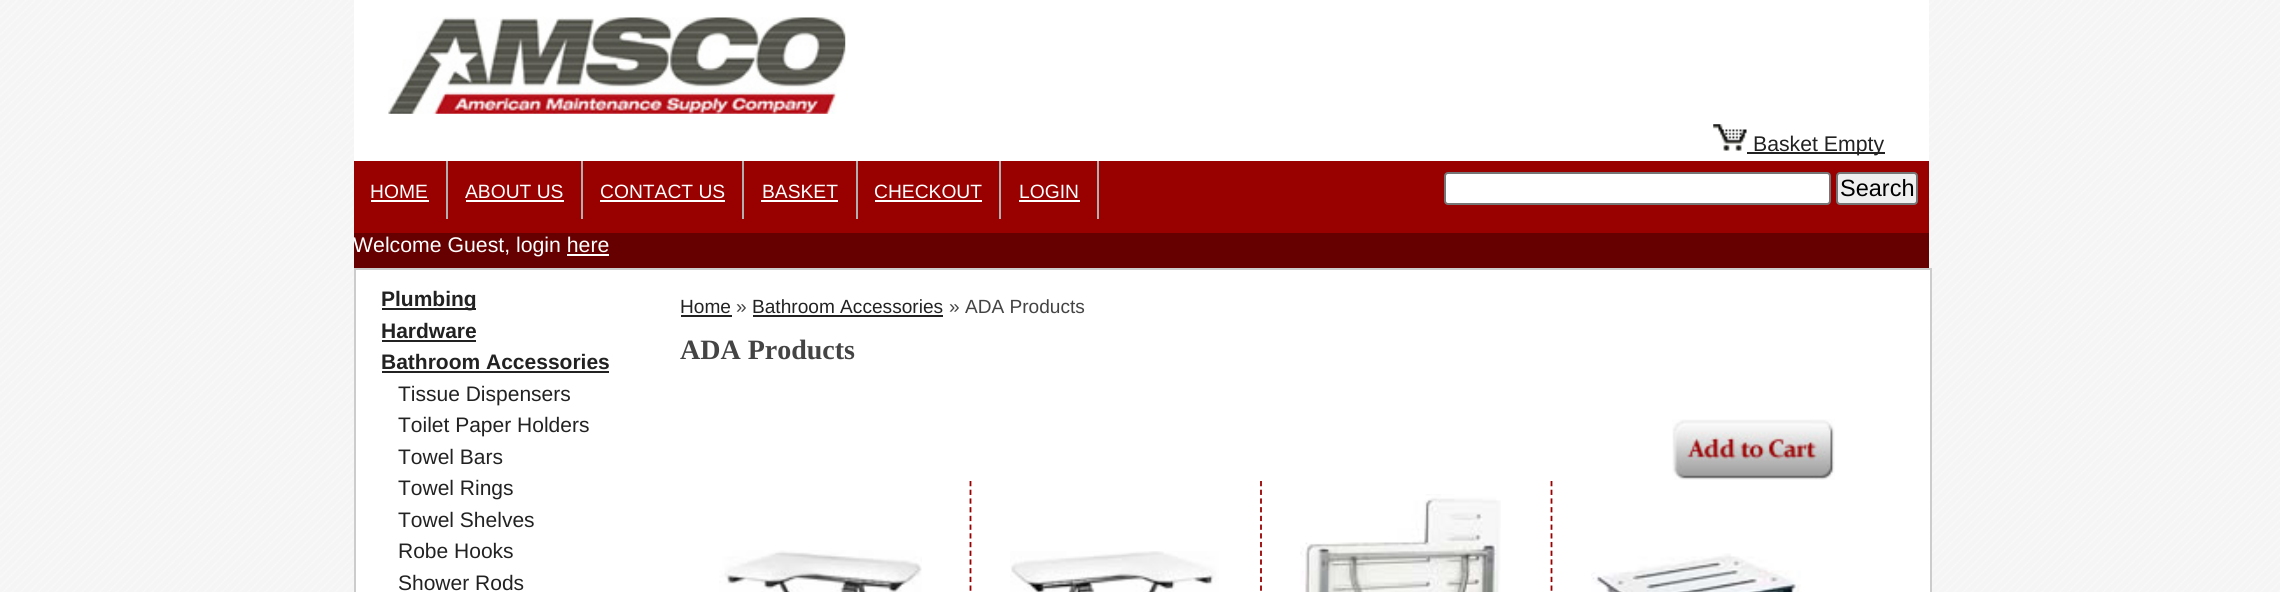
import math
import cairo

surface = cairo.ImageSurface(cairo.FORMAT_RGB24, 2280, 592)
ctx = cairo.Context(surface)
options = cairo.FontOptions()
options.set_hint_metrics(cairo.HINT_METRICS_OFF)
options.set_hint_style(cairo.HINT_STYLE_NONE)
ctx.set_font_options(options)
ctx.set_miter_limit(4)


def round_rect(x, y, w, h, r):
    ctx.new_sub_path()
    for i, (u, v) in enumerate([(x + w - r, y + h - r), (x + r, y + h - r), (x + r, y + r), (x + w - r, y + r)]):
        ctx.arc(u, v, r, i * math.pi / 2, (i + 1) * math.pi / 2)
    ctx.close_path()


def picture(path, x, y, w, h):
    ctx.save()
    ctx.set_source_surface(cairo.ImageSurface.create_from_png(path), x, y)
    ctx.rectangle(x, y, w, h)
    ctx.fill()
    ctx.restore()


ctx.set_source_rgb(1, 1, 1)
ctx.paint()
picture("img1.png", 0, 0, 2280, 592)
ctx.set_source_rgb(1, 1, 1)
ctx.rectangle(354, 0, 1575, 161)
ctx.fill()
picture("img2.png", 388, 17, 458, 97)
picture("img3.png", 1713, 124, 34, 27)
ctx.set_source_rgb(0.133, 0.133, 0.133)
ctx.rectangle(1747, 152, 138, 2)
ctx.fill()
ctx.select_font_face("Liberation Sans")
ctx.set_font_size(21.25)
ctx.move_to(1753, 151)
ctx.show_text("Basket Empty")
ctx.set_source_rgb(0.6, 0, 0)
ctx.rectangle(354, 161, 1575, 72)
ctx.fill()
ctx.set_source_rgb(0.69, 0.69, 0.69)
ctx.rectangle(446, 161, 2, 58)
ctx.fill()
ctx.set_font_size(19.25)
ctx.set_source_rgb(1, 1, 1)
ctx.move_to(370, 198)
ctx.show_text("HOME")
ctx.rectangle(371, 200, 58, 2)
ctx.fill()
ctx.set_source_rgb(0.69, 0.69, 0.69)
ctx.rectangle(581, 161, 2, 58)
ctx.fill()
ctx.set_source_rgb(1, 1, 1)
ctx.move_to(465, 198)
ctx.show_text("ABOUT US")
ctx.rectangle(466, 200, 98, 2)
ctx.fill()
ctx.set_source_rgb(0.69, 0.69, 0.69)
ctx.rectangle(742, 161, 2, 58)
ctx.fill()
ctx.set_source_rgb(1, 1, 1)
ctx.move_to(600, 198)
ctx.show_text("CONTACT US")
ctx.rectangle(600, 200, 125, 2)
ctx.fill()
ctx.set_source_rgb(0.69, 0.69, 0.69)
ctx.rectangle(856, 161, 2, 58)
ctx.fill()
ctx.set_source_rgb(1, 1, 1)
ctx.move_to(762, 198)
ctx.show_text("BASKET")
ctx.rectangle(761, 200, 77, 2)
ctx.fill()
ctx.set_source_rgb(0.69, 0.69, 0.69)
ctx.rectangle(999, 161, 2, 58)
ctx.fill()
ctx.set_source_rgb(1, 1, 1)
ctx.move_to(874, 198)
ctx.show_text("CHECKOUT")
ctx.rectangle(875, 200, 107, 2)
ctx.fill()
ctx.set_source_rgb(0.69, 0.69, 0.69)
ctx.rectangle(1097, 161, 2, 58)
ctx.fill()
ctx.set_source_rgb(1, 1, 1)
ctx.move_to(1019, 198)
ctx.show_text("LOGIN")
ctx.rectangle(1019, 200, 61, 2)
ctx.fill()
round_rect(1445, 173, 385, 31, 3)
ctx.fill_preserve()
ctx.set_source_rgb(0.463, 0.463, 0.463)
ctx.stroke()
ctx.set_source_rgb(0.937, 0.937, 0.937)
round_rect(1837, 173, 80, 31, 3)
ctx.fill_preserve()
ctx.set_source_rgb(0.463, 0.463, 0.463)
ctx.stroke()
ctx.set_font_size(23.5)
ctx.set_source_rgb(0, 0, 0)
ctx.move_to(1840, 196)
ctx.show_text("Search")
ctx.set_source_rgb(0.4, 0, 0)
ctx.rectangle(354, 233, 1575, 35)
ctx.fill()
ctx.set_font_size(21.25)
ctx.set_source_rgb(1, 1, 1)
ctx.move_to(353, 252)
ctx.show_text("Welcome Guest, login here")
ctx.rectangle(567, 254, 42, 2)
ctx.fill()
ctx.rectangle(355, 269, 1576, 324)
ctx.fill_preserve()
ctx.set_source_rgb(0.8, 0.8, 0.8)
ctx.stroke()
ctx.set_source_rgb(0.133, 0.133, 0.133)
ctx.rectangle(382, 308, 94, 2)
ctx.fill()
ctx.select_font_face("Liberation Sans", cairo.FONT_SLANT_NORMAL, cairo.FONT_WEIGHT_BOLD)
ctx.set_font_size(21)
ctx.move_to(381, 306)
ctx.show_text("Plumbing")
ctx.move_to(381, 338)
ctx.show_text("Hardware")
ctx.rectangle(382, 340, 94, 2)
ctx.fill()
ctx.move_to(381, 369)
ctx.show_text("Bathroom Accessories")
ctx.rectangle(382, 371, 227, 2)
ctx.fill()
ctx.select_font_face("Liberation Sans")
ctx.move_to(398, 401)
ctx.show_text("Tissue Dispensers")
ctx.move_to(398, 432)
ctx.show_text("Toilet Paper Holders")
ctx.move_to(398, 464)
ctx.show_text("Towel Bars")
ctx.move_to(398, 495)
ctx.show_text("Towel Rings")
ctx.move_to(398, 527)
ctx.show_text("Towel Shelves")
ctx.move_to(398, 558)
ctx.show_text("Robe Hooks")
ctx.move_to(398, 590)
ctx.show_text("Shower Rods")
ctx.set_font_size(19.1)
ctx.move_to(680, 313)
ctx.show_text("Home")
ctx.rectangle(681, 315, 51, 2)
ctx.fill()
ctx.set_source_rgb(0.267, 0.267, 0.267)
ctx.move_to(736, 313)
ctx.show_text("»")
ctx.set_source_rgb(0.133, 0.133, 0.133)
ctx.move_to(752, 313)
ctx.show_text("Bathroom Accessories")
ctx.rectangle(753, 315, 190, 2)
ctx.fill()
ctx.set_source_rgb(0.267, 0.267, 0.267)
ctx.move_to(949, 313)
ctx.show_text("» ADA Products")
ctx.select_font_face("Liberation Serif", cairo.FONT_SLANT_NORMAL, cairo.FONT_WEIGHT_BOLD)
ctx.set_font_size(28)
ctx.move_to(680, 359)
ctx.show_text("ADA Products")
picture("img4.png", 1672, 419, 163, 61)
ctx.new_path()
ctx.move_to(970.5, 481)
ctx.line_to(970.5, 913.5)
ctx.set_source_rgb(0.6, 0, 0)
ctx.set_line_width(1.8)
ctx.set_dash([5.25, 3.46])
ctx.stroke()
picture("img5.png", 719, 550, 203, 42)
ctx.new_path()
ctx.move_to(1261, 481)
ctx.line_to(1261, 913.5)
ctx.stroke()
picture("img6.png", 1010, 551, 209, 41)
ctx.new_path()
ctx.move_to(1551.5, 481)
ctx.line_to(1551.5, 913.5)
ctx.stroke()
picture("img7.png", 1300, 494, 201, 98)
picture("img8.png", 1591, 553, 210, 39)
surface.write_to_png("page.png")
